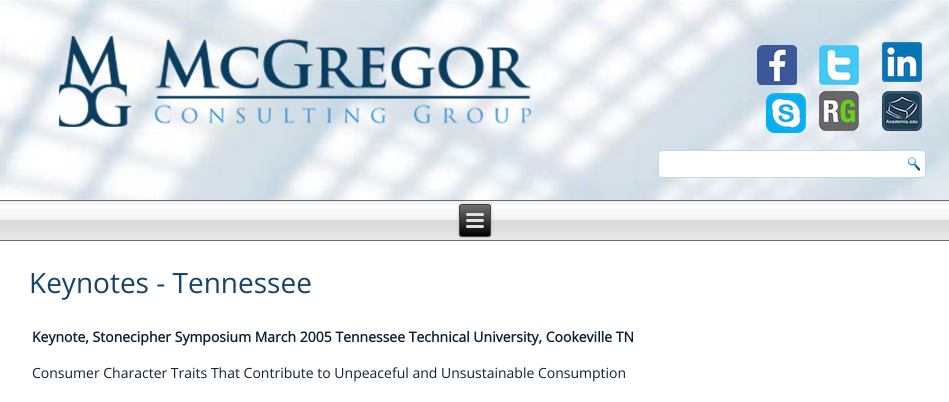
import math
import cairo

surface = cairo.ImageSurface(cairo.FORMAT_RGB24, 949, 402)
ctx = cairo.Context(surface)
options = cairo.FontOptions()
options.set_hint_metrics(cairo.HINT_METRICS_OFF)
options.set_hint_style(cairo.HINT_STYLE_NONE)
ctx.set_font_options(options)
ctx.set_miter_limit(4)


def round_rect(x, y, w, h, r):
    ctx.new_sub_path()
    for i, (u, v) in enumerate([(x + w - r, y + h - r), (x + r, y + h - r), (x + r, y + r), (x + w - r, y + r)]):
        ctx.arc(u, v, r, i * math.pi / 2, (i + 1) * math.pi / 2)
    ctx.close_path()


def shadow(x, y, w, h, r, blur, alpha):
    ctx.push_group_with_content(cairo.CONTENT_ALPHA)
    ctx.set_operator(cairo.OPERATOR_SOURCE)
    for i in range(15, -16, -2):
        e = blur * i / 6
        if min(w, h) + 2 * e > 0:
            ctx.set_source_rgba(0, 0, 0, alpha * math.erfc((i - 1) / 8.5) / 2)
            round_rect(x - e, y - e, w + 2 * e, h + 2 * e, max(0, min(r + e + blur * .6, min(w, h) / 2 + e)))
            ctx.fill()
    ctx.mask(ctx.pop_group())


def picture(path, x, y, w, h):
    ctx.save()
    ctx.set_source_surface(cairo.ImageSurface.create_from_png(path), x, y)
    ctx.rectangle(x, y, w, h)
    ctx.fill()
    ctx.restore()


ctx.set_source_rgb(1, 1, 1)
ctx.paint()
picture("img1.png", 0, 0, 949, 200)
picture("img2.png", 59, 36, 473, 91)
picture("img3.png", 757, 45, 40, 40)
picture("img4.png", 819, 45, 40, 40)
picture("img5.png", 882, 42, 40, 40)
picture("img6.png", 766, 93, 40, 40)
picture("img7.png", 819, 91, 40, 40)
picture("img8.png", 882, 91, 40, 40)
ctx.set_source_rgb(1, 1, 1)
round_rect(658.5, 150.5, 267, 27, 3.5)
ctx.fill_preserve()
ctx.set_source_rgb(0.737, 0.851, 0.945)
ctx.set_line_width(1)
ctx.stroke()
picture("img9.png", 907, 157, 14, 14)
gradient = cairo.LinearGradient(475, 200, 475, 241)
gradient.add_color_stop_rgba(0, 0.922, 0.922, 0.922, 1)
gradient.add_color_stop_rgba(0.15, 1, 1, 1, 1)
gradient.add_color_stop_rgba(0.5, 0.941, 0.941, 0.941, 1)
gradient.add_color_stop_rgba(0.5, 0.851, 0.851, 0.851, 1)
gradient.add_color_stop_rgba(1, 0.91, 0.91, 0.91, 1)
ctx.set_source(gradient)
ctx.rectangle(0, 201, 949, 39)
ctx.fill()
ctx.set_source_rgb(0.42, 0.42, 0.42)
ctx.rectangle(0, 200, 949, 1)
ctx.fill()
ctx.rectangle(0, 240, 949, 1)
ctx.fill()
ctx.set_source_rgb(0, 0, 0)
shadow(459, 204, 32, 33, 3, 1.5, 0.2)
ctx.save()
round_rect(459, 204, 32, 33, 3)
ctx.clip()
gradient = cairo.LinearGradient(475, 205, 475, 236)
gradient.add_color_stop_rgba(0, 0.439, 0.439, 0.439, 1)
gradient.add_color_stop_rgba(1, 0, 0, 0, 1)
ctx.set_source(gradient)
ctx.rectangle(459, 205, 32, 31)
ctx.fill()
ctx.restore()
round_rect(459.5, 204.5, 31, 32, 2.5)
ctx.set_source_rgb(0.251, 0.251, 0.251)
ctx.stroke()
ctx.set_source_rgb(0.878, 0.878, 0.878)
round_rect(466, 213, 18, 3, 1.5)
ctx.fill()
round_rect(466, 219, 18, 3, 1.5)
ctx.fill()
round_rect(466, 225, 18, 3, 1.5)
ctx.fill()
ctx.select_font_face("Open Sans")
ctx.set_font_size(28)
ctx.set_source_rgb(0.086, 0.267, 0.412)
ctx.move_to(29, 293)
ctx.show_text("Keynotes - Tennessee")
ctx.select_font_face("Open Sans", cairo.FONT_SLANT_NORMAL, cairo.FONT_WEIGHT_BOLD)
ctx.set_font_size(14)
ctx.set_source_rgb(0.043, 0.129, 0.196)
ctx.move_to(32, 342)
ctx.show_text("Keynote, Stonecipher Symposium March 2005 Tennessee Technical University, Cookeville TN")
ctx.select_font_face("Open Sans")
ctx.move_to(32, 378)
ctx.show_text("Consumer Character Traits That Contribute to Unpeaceful and Unsustainable Consumption")
surface.write_to_png("page.png")
